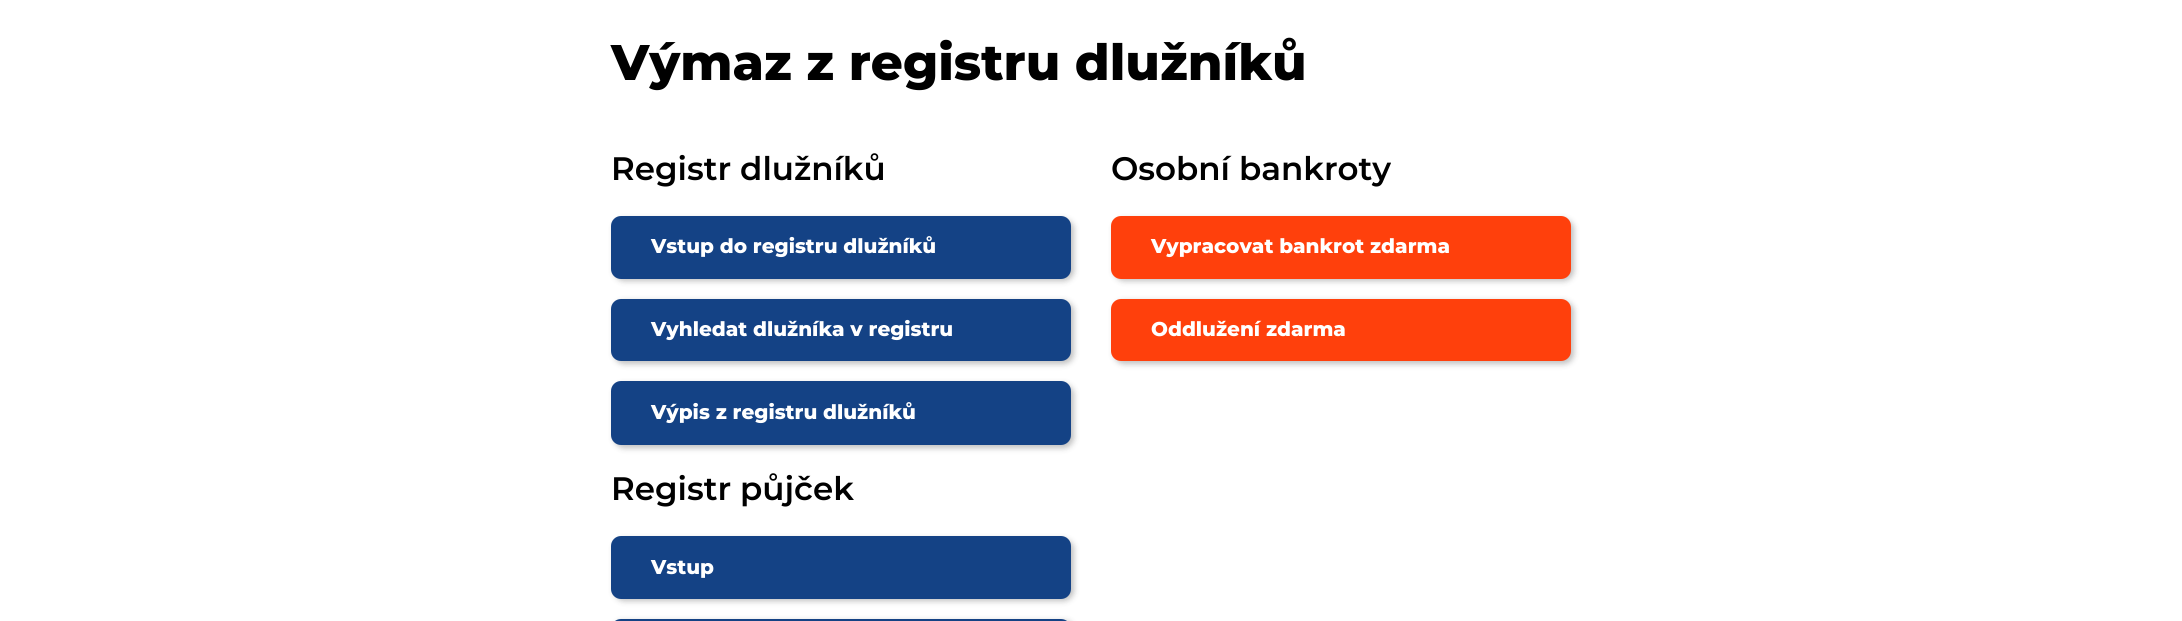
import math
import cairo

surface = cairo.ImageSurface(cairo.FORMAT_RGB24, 2182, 621)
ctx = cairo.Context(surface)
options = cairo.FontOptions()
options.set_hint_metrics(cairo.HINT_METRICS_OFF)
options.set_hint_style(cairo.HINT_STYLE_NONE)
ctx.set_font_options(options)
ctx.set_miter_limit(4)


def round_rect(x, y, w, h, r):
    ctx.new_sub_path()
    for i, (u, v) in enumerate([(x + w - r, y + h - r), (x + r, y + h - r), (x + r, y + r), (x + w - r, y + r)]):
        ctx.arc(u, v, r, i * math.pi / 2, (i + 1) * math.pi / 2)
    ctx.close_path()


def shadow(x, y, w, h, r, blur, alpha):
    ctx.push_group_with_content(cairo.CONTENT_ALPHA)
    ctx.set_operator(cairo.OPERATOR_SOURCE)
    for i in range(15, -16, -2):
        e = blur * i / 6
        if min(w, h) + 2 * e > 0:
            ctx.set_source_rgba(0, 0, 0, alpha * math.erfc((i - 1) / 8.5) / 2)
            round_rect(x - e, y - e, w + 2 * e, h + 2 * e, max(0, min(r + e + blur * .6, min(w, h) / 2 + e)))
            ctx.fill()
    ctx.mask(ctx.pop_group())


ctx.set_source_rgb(1, 1, 1)
ctx.paint()
ctx.select_font_face("Montserrat ExtraBold")
ctx.set_font_size(50)
ctx.set_source_rgb(0, 0, 0)
ctx.move_to(611, 80)
ctx.show_text("Výmaz z registru dlužníků")
ctx.select_font_face("Montserrat SemiBold")
ctx.set_font_size(32.5)
ctx.move_to(611, 180)
ctx.show_text("Registr dlužníků")
ctx.set_source_rgb(0, 0, 0)
shadow(614, 219, 460, 62, 10, 3, 0.25)
ctx.set_source_rgb(0.082, 0.259, 0.522)
round_rect(611, 216, 460, 63, 10)
ctx.fill()
ctx.select_font_face("Montserrat ExtraBold")
ctx.set_font_size(20)
ctx.set_source_rgb(1, 1, 1)
ctx.move_to(651, 253)
ctx.show_text("Vstup do registru dlužníků")
ctx.set_source_rgb(0, 0, 0)
shadow(614, 301, 460, 63, 10, 3, 0.25)
ctx.set_source_rgb(0.082, 0.259, 0.522)
round_rect(611, 299, 460, 62, 10)
ctx.fill()
ctx.set_source_rgb(1, 1, 1)
ctx.move_to(651, 336)
ctx.show_text("Vyhledat dlužníka v registru")
ctx.set_source_rgb(0, 0, 0)
shadow(614, 384, 460, 64, 10, 3, 0.25)
ctx.set_source_rgb(0.082, 0.259, 0.522)
round_rect(611, 381, 460, 64, 10)
ctx.fill()
ctx.set_source_rgb(1, 1, 1)
ctx.move_to(651, 419)
ctx.show_text("Výpis z registru dlužníků")
ctx.select_font_face("Montserrat SemiBold")
ctx.set_font_size(32.5)
ctx.set_source_rgb(0, 0, 0)
ctx.move_to(1111, 180)
ctx.show_text("Osobní bankroty")
ctx.set_source_rgb(0, 0, 0)
shadow(1114, 219, 460, 62, 10, 3, 0.25)
ctx.set_source_rgb(1, 0.251, 0.047)
round_rect(1111, 216, 460, 63, 10)
ctx.fill()
ctx.select_font_face("Montserrat ExtraBold")
ctx.set_font_size(20)
ctx.set_source_rgb(1, 1, 1)
ctx.move_to(1151, 253)
ctx.show_text("Vypracovat bankrot zdarma")
ctx.set_source_rgb(0, 0, 0)
shadow(1114, 301, 460, 63, 10, 3, 0.25)
ctx.set_source_rgb(1, 0.251, 0.047)
round_rect(1111, 299, 460, 62, 10)
ctx.fill()
ctx.set_source_rgb(1, 1, 1)
ctx.move_to(1151, 336)
ctx.show_text("Oddlužení zdarma")
ctx.select_font_face("Montserrat SemiBold")
ctx.set_font_size(32.5)
ctx.set_source_rgb(0, 0, 0)
ctx.move_to(611, 500)
ctx.show_text("Registr půjček")
ctx.set_source_rgb(0, 0, 0)
shadow(614, 539, 460, 62, 10, 3, 0.25)
ctx.set_source_rgb(0.082, 0.259, 0.522)
round_rect(611, 536, 460, 63, 10)
ctx.fill()
ctx.select_font_face("Montserrat ExtraBold")
ctx.set_font_size(20)
ctx.set_source_rgb(1, 1, 1)
ctx.move_to(651, 574)
ctx.show_text("Vstup")
ctx.set_source_rgb(0, 0, 0)
shadow(614, 621, 460, 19, 10, 3, 0.25)
ctx.set_source_rgb(0.082, 0.259, 0.522)
round_rect(611, 619, 460, 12, 10)
ctx.fill()
surface.write_to_png("page.png")
